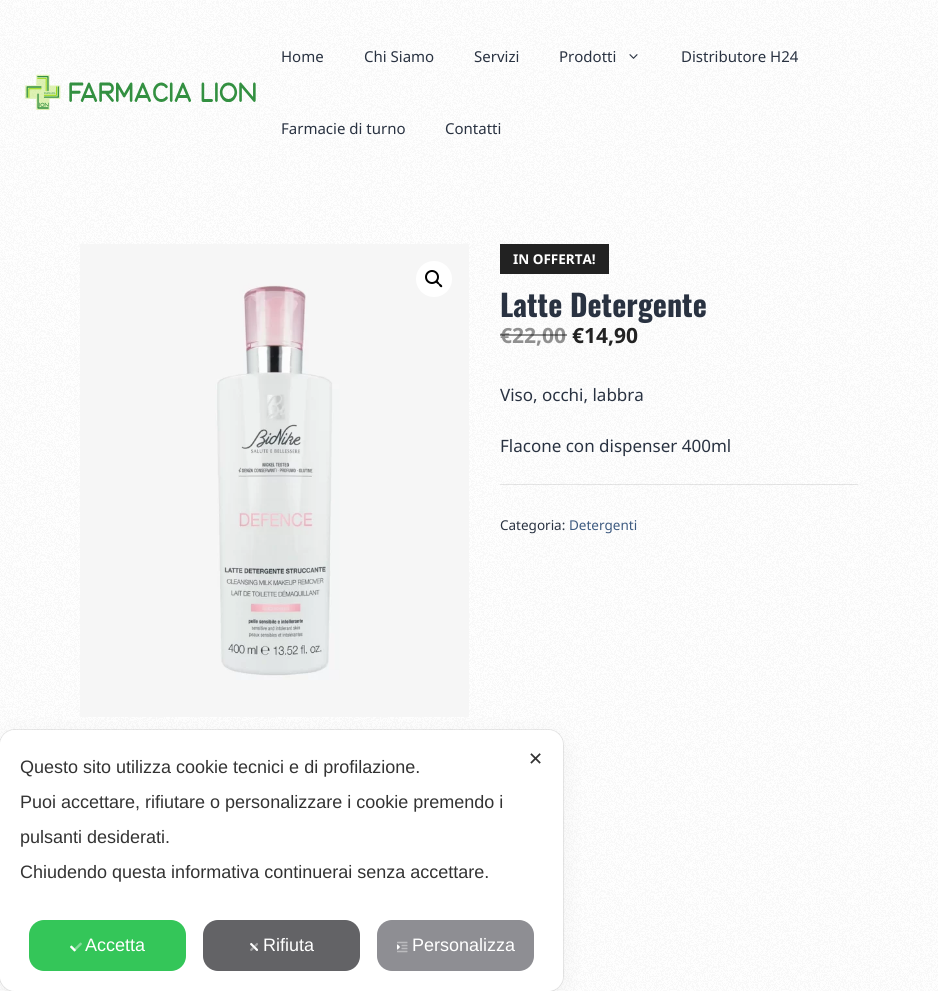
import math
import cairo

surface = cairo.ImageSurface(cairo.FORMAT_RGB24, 938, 991)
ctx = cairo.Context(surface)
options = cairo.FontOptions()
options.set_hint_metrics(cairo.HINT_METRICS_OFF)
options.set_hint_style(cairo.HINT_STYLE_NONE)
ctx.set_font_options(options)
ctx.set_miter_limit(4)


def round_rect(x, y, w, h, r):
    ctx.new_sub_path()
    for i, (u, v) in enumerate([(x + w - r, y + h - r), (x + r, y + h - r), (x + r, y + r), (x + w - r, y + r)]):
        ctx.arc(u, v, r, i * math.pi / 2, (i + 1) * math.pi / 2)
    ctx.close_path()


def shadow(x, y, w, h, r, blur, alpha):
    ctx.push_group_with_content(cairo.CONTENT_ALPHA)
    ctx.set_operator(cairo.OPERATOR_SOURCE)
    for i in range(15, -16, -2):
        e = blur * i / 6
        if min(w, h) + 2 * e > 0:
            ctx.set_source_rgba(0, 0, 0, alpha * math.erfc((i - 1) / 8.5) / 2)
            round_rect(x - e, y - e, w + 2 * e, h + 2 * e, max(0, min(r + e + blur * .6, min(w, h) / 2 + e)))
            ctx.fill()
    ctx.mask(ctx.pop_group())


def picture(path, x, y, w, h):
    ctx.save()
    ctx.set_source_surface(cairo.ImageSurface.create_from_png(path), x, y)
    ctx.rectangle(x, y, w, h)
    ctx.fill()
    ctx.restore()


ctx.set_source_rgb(1, 1, 1)
ctx.paint()
picture("img1.png", 0, 0, 938, 991)
picture("img2.png", 25, 74, 231, 36)
ctx.select_font_face("Noto Sans")
ctx.set_font_size(15)
ctx.set_source_rgb(0.161, 0.196, 0.255)
ctx.move_to(281, 62)
ctx.show_text("Home")
ctx.move_to(364, 62)
ctx.show_text("Chi Siamo")
ctx.move_to(474, 62)
ctx.show_text("Servizi")
ctx.move_to(559, 62)
ctx.show_text("Prodotti")
picture("img3.png", 629, 54, 9, 5)
ctx.move_to(681, 62)
ctx.show_text("Distributore H24")
ctx.move_to(281, 134)
ctx.show_text("Farmacie di turno")
ctx.move_to(445, 134)
ctx.show_text("Contatti")
picture("img4.png", 80, 244, 389, 473)
ctx.set_source_rgb(1, 1, 1)
ctx.arc(434, 279, 18, 0, 2 * math.pi)
ctx.fill()
ctx.arc(432, 277, 6, 0, 2 * math.pi)
ctx.set_source_rgb(0, 0, 0)
ctx.stroke()
ctx.new_path()
ctx.move_to(436, 281)
ctx.curve_to(437.5, 280, 439, 282.5, 439.5, 283.5)
ctx.curve_to(440.5, 284, 443, 285.5, 442, 287)
ctx.curve_to(440.5, 288, 439, 285.5, 438.5, 284.5)
ctx.curve_to(437.5, 284, 435, 282.5, 436, 281)
ctx.close_path()
ctx.fill()
ctx.set_source_rgb(0.133, 0.133, 0.133)
ctx.rectangle(500, 244, 109, 30)
ctx.fill()
ctx.select_font_face("Noto Sans", cairo.FONT_SLANT_NORMAL, cairo.FONT_WEIGHT_BOLD)
ctx.set_font_size(13.5)
ctx.set_source_rgb(1, 1, 1)
ctx.move_to(513, 264)
ctx.show_text("IN OFFERTA!")
ctx.select_font_face("Oswald", cairo.FONT_SLANT_NORMAL, cairo.FONT_WEIGHT_BOLD)
ctx.set_font_size(30)
ctx.set_source_rgb(0.161, 0.196, 0.255)
ctx.move_to(500, 317)
ctx.show_text("Latte Detergente")
ctx.select_font_face("Noto Sans", cairo.FONT_SLANT_NORMAL, cairo.FONT_WEIGHT_BOLD)
ctx.set_font_size(21)
ctx.set_source_rgb(0.561, 0.561, 0.561)
ctx.move_to(500, 343)
ctx.show_text("€22,00")
ctx.set_source_rgba(0.133, 0.133, 0.133, 0.5)
ctx.rectangle(500, 334, 12, 2)
ctx.fill()
ctx.rectangle(512, 334, 55, 2)
ctx.fill()
ctx.set_source_rgb(0.133, 0.133, 0.133)
ctx.move_to(572, 343)
ctx.show_text("€14,90")
ctx.select_font_face("Noto Sans")
ctx.set_font_size(17)
ctx.set_source_rgb(0.161, 0.196, 0.255)
ctx.move_to(500, 401)
ctx.show_text("Viso, occhi, labbra")
ctx.move_to(500, 452)
ctx.show_text("Flacone con dispenser 400ml")
ctx.set_source_rgba(0, 0, 0, 0.1)
ctx.rectangle(500, 484, 358, 1)
ctx.fill()
ctx.set_font_size(13.5)
ctx.set_source_rgb(0.161, 0.196, 0.255)
ctx.move_to(500, 530)
ctx.show_text("Categoria:")
ctx.set_source_rgb(0.239, 0.353, 0.502)
ctx.move_to(569, 530)
ctx.show_text("Detergenti")
round_rect(-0.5, 729.5, 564, 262, 15.5)
ctx.set_source_rgba(0, 0, 0, 0.08)
ctx.set_line_width(1)
ctx.stroke()
ctx.set_source_rgb(0, 0, 0)
shadow(0, 736, 563, 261, 15, 12, 0.05)
ctx.set_source_rgb(1, 1, 1)
round_rect(0, 730, 563, 261, 15)
ctx.fill()
ctx.select_font_face("Liberation Sans")
ctx.set_font_size(18)
ctx.set_source_rgb(0.2, 0.2, 0.2)
ctx.move_to(20, 773)
ctx.show_text("Questo sito utilizza cookie tecnici e di profilazione.")
ctx.move_to(20, 808)
ctx.show_text("Puoi accettare, rifiutare o personalizzare i cookie premendo i")
ctx.move_to(20, 843)
ctx.show_text("pulsanti desiderati.")
ctx.move_to(20, 878)
ctx.show_text("Chiudendo questa informativa continuerai senza accettare.")
ctx.set_source_rgb(0.204, 0.776, 0.349)
round_rect(29, 920, 157, 51, 15)
ctx.fill()
picture("img5.png", 70, 942, 12, 10)
ctx.set_source_rgb(1, 1, 1)
ctx.move_to(85, 951)
ctx.show_text("Accetta")
ctx.set_source_rgb(0.388, 0.388, 0.4)
round_rect(203, 920, 157, 51, 15)
ctx.fill()
picture("img6.png", 250, 942, 8, 9)
ctx.set_source_rgb(1, 1, 1)
ctx.move_to(263, 951)
ctx.show_text("Rifiuta")
ctx.set_source_rgb(0.557, 0.557, 0.576)
round_rect(377, 920, 157, 51, 15)
ctx.fill()
picture("img7.png", 397, 941, 11, 12)
ctx.set_source_rgb(1, 1, 1)
ctx.move_to(412, 951)
ctx.show_text("Personalizza")
ctx.select_font_face("DejaVu Sans")
ctx.set_source_rgb(0.2, 0.2, 0.2)
ctx.move_to(528, 765)
ctx.show_text("✕")
surface.write_to_png("page.png")
